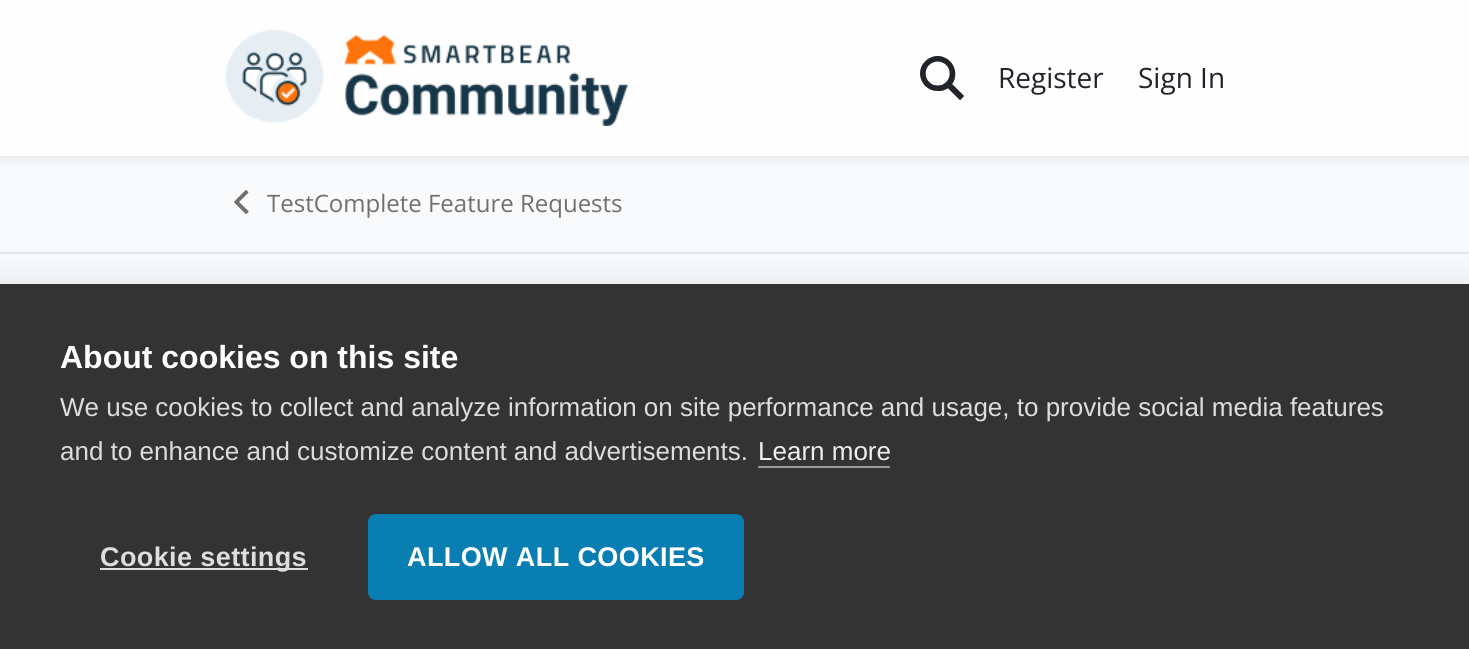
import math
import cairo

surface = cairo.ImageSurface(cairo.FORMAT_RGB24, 1469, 649)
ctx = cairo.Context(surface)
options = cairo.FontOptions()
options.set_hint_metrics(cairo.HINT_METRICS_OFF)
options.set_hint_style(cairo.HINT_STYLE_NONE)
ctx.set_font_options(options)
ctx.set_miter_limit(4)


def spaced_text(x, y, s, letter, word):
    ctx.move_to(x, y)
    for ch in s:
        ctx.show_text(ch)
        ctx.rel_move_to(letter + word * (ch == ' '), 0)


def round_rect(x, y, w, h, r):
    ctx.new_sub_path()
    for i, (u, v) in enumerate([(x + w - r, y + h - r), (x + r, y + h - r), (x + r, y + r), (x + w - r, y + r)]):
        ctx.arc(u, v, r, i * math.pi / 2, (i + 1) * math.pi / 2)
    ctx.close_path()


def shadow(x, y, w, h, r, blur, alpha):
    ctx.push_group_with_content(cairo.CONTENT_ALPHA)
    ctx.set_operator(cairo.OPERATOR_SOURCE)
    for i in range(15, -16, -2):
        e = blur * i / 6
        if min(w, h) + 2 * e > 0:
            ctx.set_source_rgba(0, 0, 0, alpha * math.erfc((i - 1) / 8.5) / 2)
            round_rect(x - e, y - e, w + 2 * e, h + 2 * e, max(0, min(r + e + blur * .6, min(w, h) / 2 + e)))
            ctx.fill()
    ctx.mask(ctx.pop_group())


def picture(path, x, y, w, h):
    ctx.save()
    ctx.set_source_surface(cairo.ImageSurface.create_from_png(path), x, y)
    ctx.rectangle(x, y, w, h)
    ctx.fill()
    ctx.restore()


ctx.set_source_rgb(0.973, 0.98, 0.984)
ctx.paint()
ctx.set_source_rgb(0.2, 0.2, 0.2)
shadow(0, 4, 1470, 158, 0, 4, 0.06)
ctx.set_source_rgb(0.996, 0.996, 0.996)
ctx.rectangle(0, 0, 1469, 156)
ctx.fill()
ctx.set_source_rgb(0.918, 0.918, 0.918)
ctx.rectangle(0, 156, 1469, 2)
ctx.fill()
picture("img1.png", 226, 30, 403, 96)
picture("img2.png", 920, 56, 44, 45)
ctx.select_font_face("Open Sans")
ctx.set_font_size(28)
ctx.set_source_rgb(0.129, 0.141, 0.161)
ctx.move_to(998, 88)
ctx.show_text("Register")
ctx.move_to(1138, 88)
ctx.show_text("Sign In")
ctx.set_source_rgb(0.894, 0.902, 0.906)
ctx.rectangle(0, 252, 1469, 2)
ctx.fill()
picture("img3.png", 234, 190, 15, 24)
ctx.set_font_size(24)
ctx.set_source_rgb(0.439, 0.439, 0.439)
ctx.move_to(267, 212)
ctx.show_text("TestComplete Feature Requests")
ctx.set_source_rgb(0, 0, 0)
shadow(0, 284, 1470, 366, 0, 20, 0.1)
ctx.set_source_rgb(0.2, 0.2, 0.2)
ctx.rectangle(0, 284, 1469, 365)
ctx.fill()
ctx.select_font_face("Liberation Sans", cairo.FONT_SLANT_NORMAL, cairo.FONT_WEIGHT_BOLD)
ctx.set_font_size(32)
ctx.set_source_rgb(1, 1, 1)
ctx.move_to(60, 368)
ctx.show_text("About cookies on this site")
ctx.select_font_face("Liberation Sans")
ctx.set_font_size(26)
ctx.set_source_rgb(0.867, 0.867, 0.867)
ctx.move_to(60, 416)
ctx.show_text("We use cookies to collect and analyze information on site performance and usage, to provide social media features")
ctx.move_to(60, 460)
ctx.show_text("and to enhance and customize content and advertisements.")
ctx.set_source_rgb(0.933, 0.933, 0.933)
ctx.move_to(758, 460)
ctx.show_text("Learn more")
ctx.set_source_rgb(0.6, 0.6, 0.6)
ctx.rectangle(758, 466, 132, 2)
ctx.fill()
ctx.set_source_rgb(0.867, 0.867, 0.867)
ctx.rectangle(100, 568, 208, 2)
ctx.fill()
ctx.select_font_face("Liberation Sans", cairo.FONT_SLANT_NORMAL, cairo.FONT_WEIGHT_BOLD)
ctx.set_font_size(27)
spaced_text(100, 566, "Cookie settings", 0.4, 0)
ctx.set_source_rgb(0.035, 0.494, 0.698)
round_rect(368, 514, 376, 86, 8)
ctx.fill()
ctx.set_source_rgb(1, 1, 1)
spaced_text(407, 566, "ALLOW ALL COOKIES", 0.4, 0)
surface.write_to_png("page.png")
